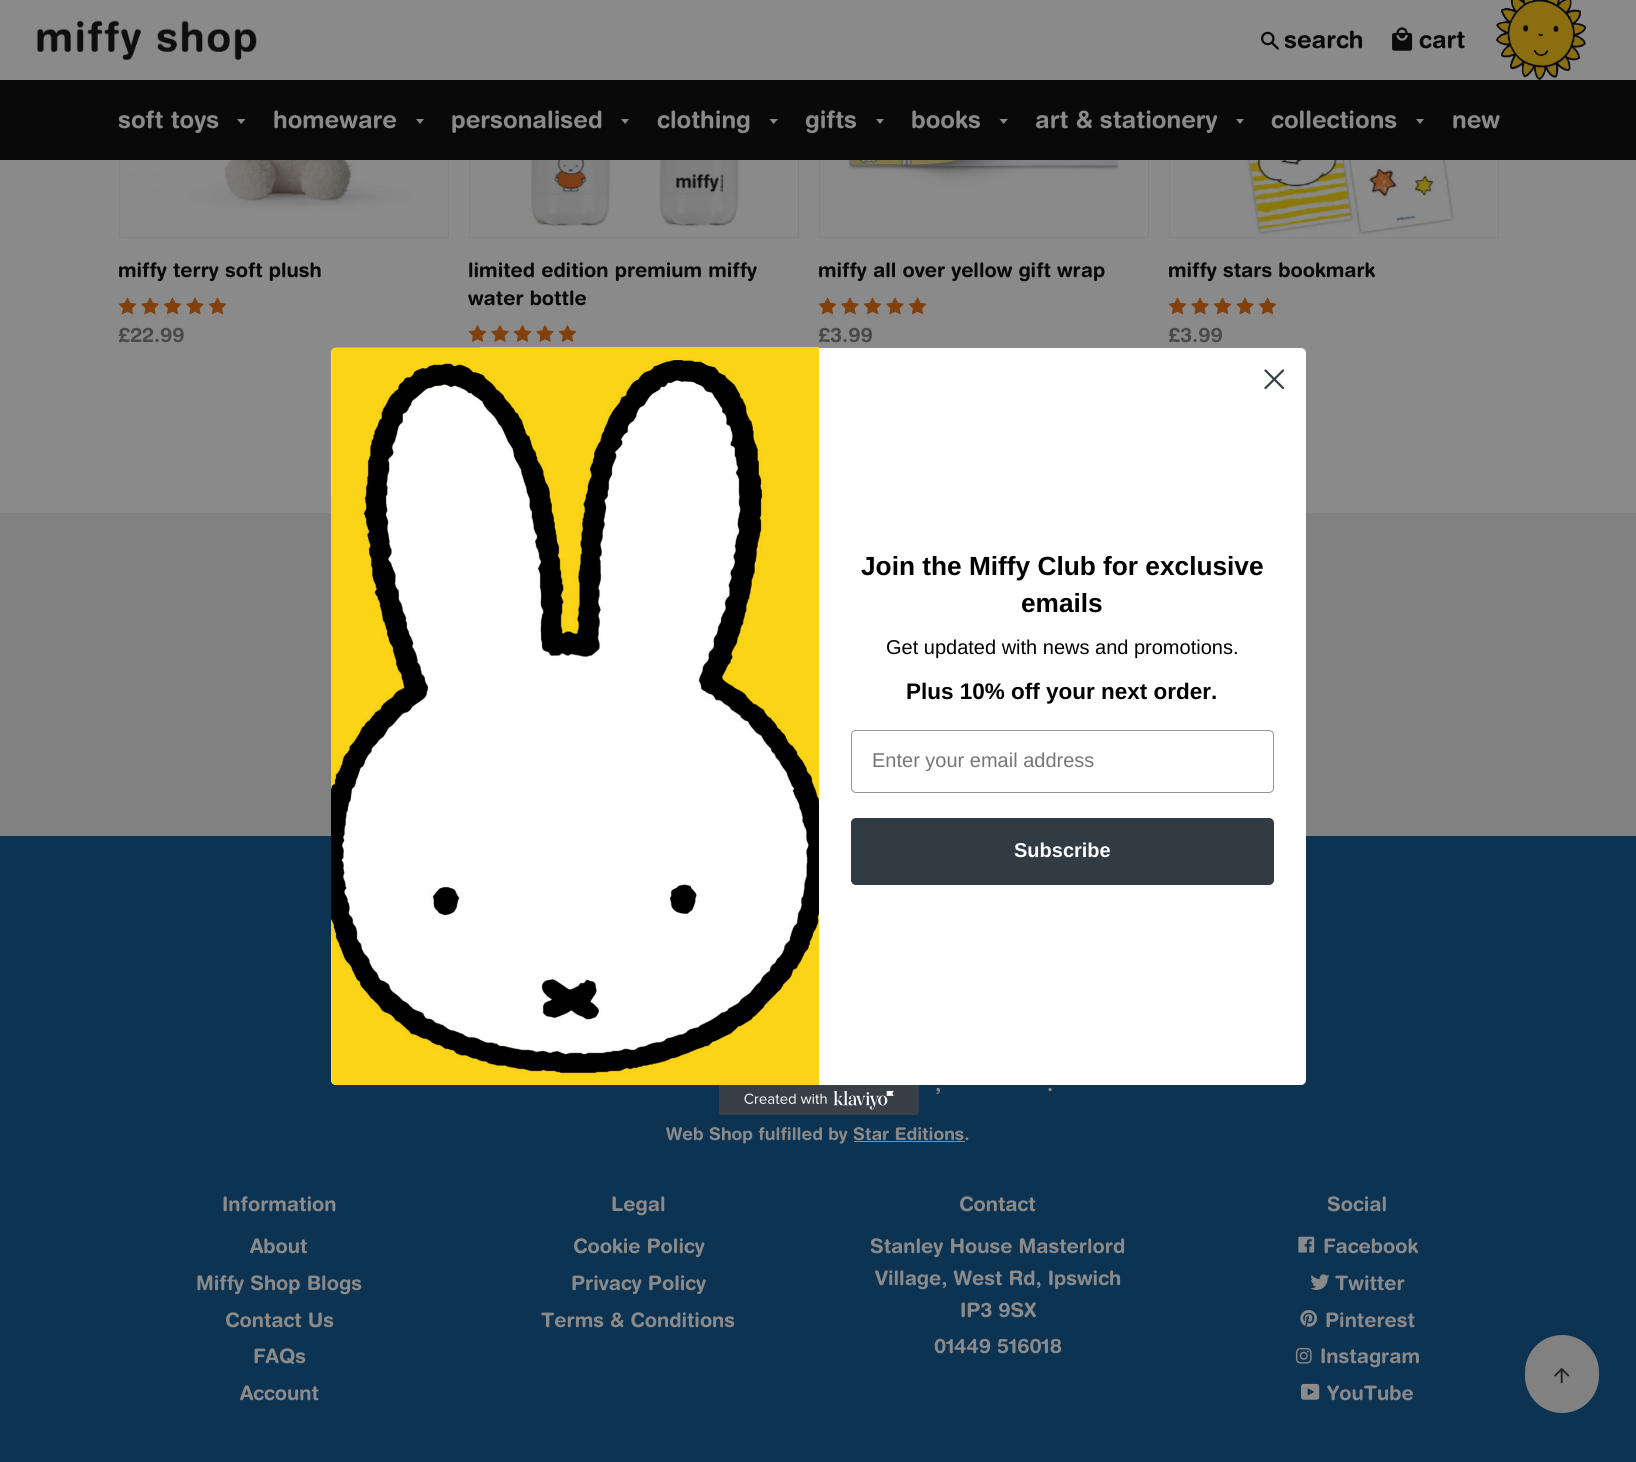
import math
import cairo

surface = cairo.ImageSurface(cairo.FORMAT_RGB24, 1636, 1462)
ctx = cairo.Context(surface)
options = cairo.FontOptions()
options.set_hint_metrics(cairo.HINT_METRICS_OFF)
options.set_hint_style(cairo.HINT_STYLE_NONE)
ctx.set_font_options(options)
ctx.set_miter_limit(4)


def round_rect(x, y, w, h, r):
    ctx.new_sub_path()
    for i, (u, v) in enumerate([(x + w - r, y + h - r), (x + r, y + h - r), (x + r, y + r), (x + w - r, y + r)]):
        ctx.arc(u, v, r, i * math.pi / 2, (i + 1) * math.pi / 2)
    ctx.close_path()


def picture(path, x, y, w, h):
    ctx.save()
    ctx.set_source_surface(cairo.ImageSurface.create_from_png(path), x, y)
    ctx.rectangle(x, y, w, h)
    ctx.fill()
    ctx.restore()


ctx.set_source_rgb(0.541, 0.541, 0.541)
ctx.paint()
ctx.rectangle(119.5, -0.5, 329, 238)
ctx.set_source_rgb(0.506, 0.506, 0.506)
ctx.set_line_width(1)
ctx.stroke()
ctx.rectangle(469.5, -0.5, 329, 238)
ctx.stroke()
ctx.rectangle(819.5, -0.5, 329, 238)
ctx.stroke()
ctx.rectangle(1169.5, -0.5, 329, 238)
ctx.stroke()
ctx.set_source_rgb(0.541, 0.541, 0.541)
ctx.rectangle(119, 0, 1380, 80)
ctx.fill()
picture("img1.png", 37, 20, 220, 40)
picture("img2.png", 1261, 31, 18, 19)
ctx.select_font_face("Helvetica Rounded", cairo.FONT_SLANT_NORMAL, cairo.FONT_WEIGHT_BOLD)
ctx.set_font_size(24)
ctx.set_source_rgb(0.039, 0.039, 0.039)
ctx.move_to(1284, 48)
ctx.show_text("search")
picture("img3.png", 1392, 27, 21, 24)
ctx.move_to(1419, 48)
ctx.show_text("cart")
picture("img4.png", 1496, 0, 90, 80)
ctx.rectangle(0, 80, 1636, 80)
ctx.fill()
ctx.set_source_rgb(0.541, 0.541, 0.541)
ctx.move_to(118, 128)
ctx.show_text("soft toys")
ctx.new_path()
ctx.move_to(237, 119)
ctx.line_to(241, 124)
ctx.line_to(245.5, 119)
ctx.close_path()
ctx.fill()
ctx.move_to(273, 128)
ctx.show_text("homeware")
ctx.new_path()
ctx.move_to(416, 119)
ctx.line_to(420, 124)
ctx.line_to(424, 119)
ctx.close_path()
ctx.fill()
ctx.move_to(451, 128)
ctx.show_text("personalised")
ctx.new_path()
ctx.move_to(621, 119)
ctx.line_to(625, 124)
ctx.line_to(629, 119)
ctx.close_path()
ctx.fill()
ctx.move_to(657, 128)
ctx.show_text("clothing")
ctx.new_path()
ctx.move_to(769.5, 119)
ctx.line_to(773.5, 124)
ctx.line_to(778, 119)
ctx.close_path()
ctx.fill()
ctx.move_to(805, 128)
ctx.show_text("gifts")
ctx.new_path()
ctx.move_to(876, 119)
ctx.line_to(880, 124)
ctx.line_to(884, 119)
ctx.close_path()
ctx.fill()
ctx.move_to(911, 128)
ctx.show_text("books")
ctx.new_path()
ctx.move_to(999.5, 119)
ctx.line_to(1003.5, 124)
ctx.line_to(1008, 119)
ctx.close_path()
ctx.fill()
ctx.move_to(1035, 128)
ctx.show_text("art & stationery")
ctx.new_path()
ctx.move_to(1236, 119)
ctx.line_to(1240, 124)
ctx.line_to(1244, 119)
ctx.close_path()
ctx.fill()
ctx.move_to(1271, 128)
ctx.show_text("collections")
ctx.new_path()
ctx.move_to(1416, 119)
ctx.line_to(1420, 124)
ctx.line_to(1424, 119)
ctx.close_path()
ctx.fill()
ctx.move_to(1452, 128)
ctx.show_text("new")
picture("img5.png", 119, 160, 328, 78)
ctx.set_font_size(20)
ctx.set_source_rgb(0.039, 0.039, 0.039)
ctx.move_to(118, 277)
ctx.show_text("miffy terry soft plush")
picture("img6.png", 119, 297, 18, 18)
picture("img7.png", 141, 297, 18, 18)
picture("img8.png", 163, 297, 19, 18)
picture("img7.png", 186, 297, 18, 18)
picture("img8.png", 208, 297, 19, 18)
ctx.set_source_rgb(0.29, 0.29, 0.29)
ctx.move_to(118, 342)
ctx.show_text("£22.99")
picture("img9.png", 469, 160, 328, 78)
ctx.set_source_rgb(0.039, 0.039, 0.039)
ctx.move_to(468, 277)
ctx.show_text("limited edition premium miffy")
ctx.move_to(468, 305)
ctx.show_text("water bottle")
picture("img10.png", 468, 325, 19, 17)
picture("img11.png", 491, 325, 18, 17)
picture("img10.png", 513, 325, 19, 17)
picture("img11.png", 536, 325, 18, 17)
picture("img10.png", 558, 325, 19, 17)
picture("img12.png", 819, 160, 328, 78)
ctx.move_to(818, 277)
ctx.show_text("miffy all over yellow gift wrap")
picture("img8.png", 818, 297, 19, 18)
picture("img7.png", 841, 297, 18, 18)
picture("img8.png", 863, 297, 19, 18)
picture("img7.png", 886, 297, 18, 18)
picture("img8.png", 908, 297, 19, 18)
ctx.set_source_rgb(0.29, 0.29, 0.29)
ctx.move_to(818, 342)
ctx.show_text("£3.99")
picture("img13.png", 1169, 160, 328, 78)
ctx.set_source_rgb(0.039, 0.039, 0.039)
ctx.move_to(1168, 277)
ctx.show_text("miffy stars bookmark")
picture("img8.png", 1168, 297, 19, 18)
picture("img7.png", 1191, 297, 18, 18)
picture("img8.png", 1213, 297, 19, 18)
picture("img7.png", 1236, 297, 18, 18)
picture("img8.png", 1258, 297, 19, 18)
ctx.set_source_rgb(0.29, 0.29, 0.29)
ctx.move_to(1168, 342)
ctx.show_text("£3.99")
picture("img14.png", 1518, 303, 1, 2)
ctx.set_source_rgb(0.506, 0.506, 0.506)
ctx.rectangle(0, 513, 1636, 323)
ctx.fill()
ctx.set_source_rgb(0.051, 0.2, 0.325)
ctx.rectangle(0, 836, 1636, 626)
ctx.fill()
ctx.set_source_rgb(1, 1, 1)
round_rect(331, 348, 975, 737, 5)
ctx.fill()
ctx.new_path()
ctx.move_to(1265.5, 370.5)
ctx.line_to(1283, 388)
ctx.move_to(1265.5, 388)
ctx.line_to(1283, 370.5)
ctx.close_path()
ctx.set_source_rgb(0.216, 0.247, 0.278)
ctx.set_line_width(2.2)
ctx.set_line_cap(cairo.LINE_CAP_ROUND)
ctx.set_line_join(cairo.LINE_JOIN_ROUND)
ctx.stroke()
picture("img15.png", 331, 347, 488, 738)
ctx.select_font_face("Liberation Sans", cairo.FONT_SLANT_NORMAL, cairo.FONT_WEIGHT_BOLD)
ctx.set_font_size(26.25)
ctx.set_source_rgb(0, 0, 0)
ctx.move_to(861, 575)
ctx.show_text("Join the Miffy Club for exclusive")
ctx.move_to(1021, 612)
ctx.show_text("emails")
ctx.select_font_face("Liberation Sans")
ctx.set_font_size(20)
ctx.move_to(886, 654)
ctx.show_text("Get updated with news and promotions.")
ctx.select_font_face("Liberation Sans", cairo.FONT_SLANT_NORMAL, cairo.FONT_WEIGHT_BOLD)
ctx.set_font_size(22.5)
ctx.move_to(906, 699)
ctx.show_text("Plus 10% off your next order.")
round_rect(851.5, 730.5, 422, 62, 4.5)
ctx.set_source_rgb(0.58, 0.584, 0.588)
ctx.set_line_width(1)
ctx.set_line_cap(cairo.LINE_CAP_BUTT)
ctx.set_line_join(cairo.LINE_JOIN_MITER)
ctx.stroke()
ctx.select_font_face("Liberation Sans")
ctx.set_font_size(20)
ctx.set_source_rgb(0.463, 0.463, 0.463)
ctx.move_to(872, 767)
ctx.show_text("Enter your email address")
ctx.set_source_rgb(0.188, 0.231, 0.263)
round_rect(851, 818, 423, 67, 5)
ctx.fill()
ctx.select_font_face("Liberation Sans", cairo.FONT_SLANT_NORMAL, cairo.FONT_WEIGHT_BOLD)
ctx.set_source_rgb(1, 1, 1)
ctx.move_to(1014, 857)
ctx.show_text("Subscribe")
picture("img16.png", 719, 1085, 200, 30)
ctx.select_font_face("Helvetica Rounded", cairo.FONT_SLANT_NORMAL, cairo.FONT_WEIGHT_BOLD)
ctx.set_source_rgb(0.541, 0.541, 0.541)
ctx.move_to(935, 1091)
ctx.show_text(",")
ctx.move_to(1047, 1091)
ctx.show_text(".")
ctx.set_font_size(17.5)
ctx.move_to(666, 1140)
ctx.show_text("Web Shop fulfilled by Star Editions.")
ctx.rectangle(854, 1141, 111, 1)
ctx.fill()
ctx.set_font_size(20)
ctx.move_to(222, 1211)
ctx.show_text("Information")
ctx.move_to(250, 1253)
ctx.show_text("About")
ctx.move_to(196, 1290)
ctx.show_text("Miffy Shop Blogs")
ctx.move_to(225, 1327)
ctx.show_text("Contact Us")
ctx.move_to(253, 1363)
ctx.show_text("FAQs")
ctx.move_to(240, 1400)
ctx.show_text("Account")
ctx.move_to(611, 1211)
ctx.show_text("Legal")
ctx.move_to(573, 1253)
ctx.show_text("Cookie Policy")
ctx.move_to(571, 1290)
ctx.show_text("Privacy Policy")
ctx.move_to(541, 1327)
ctx.show_text("Terms & Conditions")
ctx.move_to(959, 1211)
ctx.show_text("Contact")
ctx.move_to(870, 1253)
ctx.show_text("Stanley House Masterlord")
ctx.move_to(875, 1285)
ctx.show_text("Village, West Rd, Ipswich")
ctx.move_to(960, 1317)
ctx.show_text("IP3 9SX")
ctx.move_to(934, 1353)
ctx.show_text("01449 516018")
ctx.move_to(1327, 1211)
ctx.show_text("Social")
picture("img17.png", 1298, 1236, 17, 17)
ctx.move_to(1323, 1253)
ctx.show_text("Facebook")
picture("img18.png", 1310, 1274, 20, 16)
ctx.move_to(1335, 1290)
ctx.show_text("Twitter")
picture("img19.png", 1300, 1310, 18, 17)
ctx.move_to(1325, 1327)
ctx.show_text("Pinterest")
picture("img20.png", 1295, 1347, 17, 17)
ctx.move_to(1320, 1363)
ctx.show_text("Instagram")
picture("img21.png", 1301, 1383, 19, 17)
ctx.move_to(1327, 1400)
ctx.show_text("YouTube")
ctx.set_source_rgb(0.506, 0.506, 0.506)
round_rect(1525, 1335, 74, 78, 37)
ctx.fill()
picture("img22.png", 1554, 1367, 16, 17)
surface.write_to_png("page.png")
